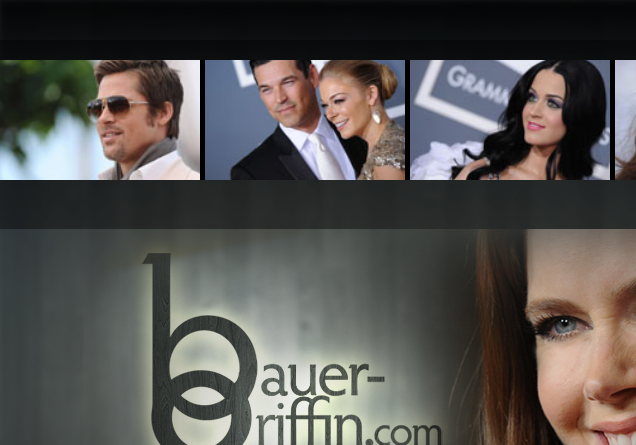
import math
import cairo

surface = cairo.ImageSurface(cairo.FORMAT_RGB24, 636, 445)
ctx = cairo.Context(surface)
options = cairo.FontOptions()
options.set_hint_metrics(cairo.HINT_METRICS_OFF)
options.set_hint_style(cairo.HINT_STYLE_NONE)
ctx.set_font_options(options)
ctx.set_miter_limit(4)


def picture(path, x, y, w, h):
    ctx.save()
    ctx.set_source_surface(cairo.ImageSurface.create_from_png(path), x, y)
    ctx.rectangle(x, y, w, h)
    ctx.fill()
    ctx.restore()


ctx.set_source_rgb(1, 1, 1)
ctx.paint()
picture("img1.png", 0, 0, 636, 445)
ctx.set_source_rgba(0, 0, 0, 0.4)
ctx.rectangle(0, 40, 636, 189)
ctx.fill()
picture("img2.png", 0, 60, 200, 120)
ctx.set_source_rgb(0, 0, 0)
ctx.rectangle(200, 60, 415, 120)
ctx.fill()
picture("img3.png", 205, 60, 200, 120)
picture("img4.png", 410, 60, 200, 120)
picture("img5.png", 615, 60, 21, 120)
picture("img6.png", 83, 229, 553, 216)
surface.write_to_png("page.png")
